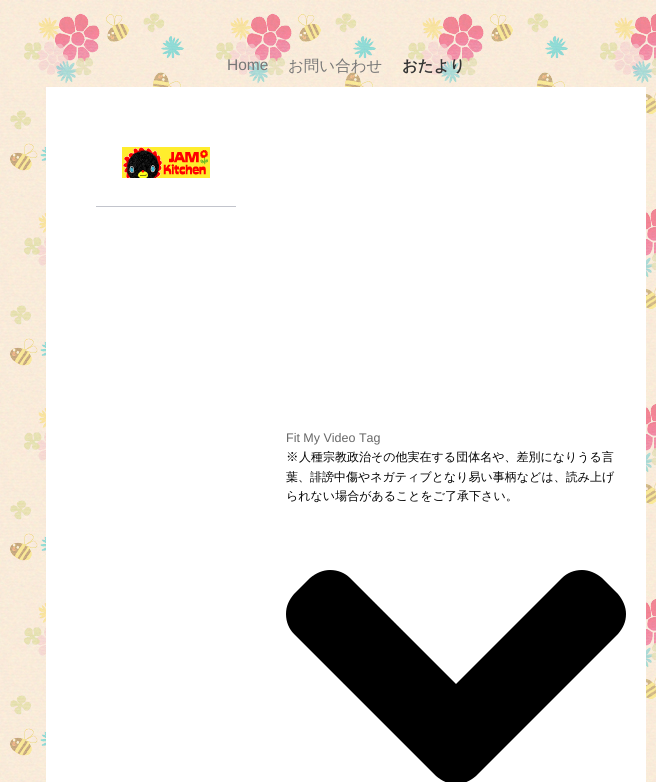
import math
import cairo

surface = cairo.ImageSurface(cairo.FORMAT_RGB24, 656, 782)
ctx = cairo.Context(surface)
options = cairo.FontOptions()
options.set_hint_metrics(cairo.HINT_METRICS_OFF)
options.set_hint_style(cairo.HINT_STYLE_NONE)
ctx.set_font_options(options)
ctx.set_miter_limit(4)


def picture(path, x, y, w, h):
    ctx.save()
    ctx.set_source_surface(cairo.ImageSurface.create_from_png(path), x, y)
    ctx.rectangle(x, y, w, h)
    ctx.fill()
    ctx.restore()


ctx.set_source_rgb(1, 1, 1)
ctx.paint()
picture("img1.png", 0, 0, 656, 782)
ctx.select_font_face("Liberation Sans")
ctx.set_font_size(15.5)
ctx.set_source_rgb(0.467, 0.467, 0.467)
ctx.move_to(227, 70)
ctx.show_text("Home")
ctx.select_font_face("WenQuanYi Zen Hei Medium")
ctx.move_to(288, 71)
ctx.show_text("お問い合わせ")
ctx.select_font_face("WenQuanYi Zen Hei", cairo.FONT_SLANT_NORMAL, cairo.FONT_WEIGHT_BOLD)
ctx.set_source_rgb(0.2, 0.2, 0.2)
ctx.move_to(402, 71)
ctx.show_text("おたより")
ctx.set_source_rgb(1, 1, 1)
ctx.rectangle(46, 87, 600, 695)
ctx.fill()
picture("img2.png", 122, 147, 88, 31)
ctx.set_source_rgb(0.761, 0.769, 0.8)
ctx.rectangle(96, 206, 140, 1)
ctx.fill()
ctx.select_font_face("Liberation Sans")
ctx.set_font_size(12.5)
ctx.set_source_rgb(0.4, 0.4, 0.4)
ctx.move_to(286, 442)
ctx.show_text("Fit My Video Tag")
ctx.select_font_face("WenQuanYi Zen Hei Medium")
ctx.set_source_rgb(0, 0, 0)
ctx.move_to(286, 461)
ctx.show_text("※")
ctx.set_font_size(12)
ctx.move_to(299, 461)
ctx.show_text("人種宗教政治その他実在する団体名や、差別になりうる言")
ctx.move_to(286, 481)
ctx.show_text("葉、誹謗中傷やネガティブとなり易い事柄などは、読み上げ")
ctx.move_to(286, 500)
ctx.show_text("られない場合があることをご了承下さい。")
ctx.new_path()
ctx.move_to(618, 594)
ctx.line_to(602, 578)
ctx.curve_to(596, 573, 589, 570, 582, 570)
ctx.curve_to(574, 570, 567, 573, 562, 578)
ctx.line_to(456, 684)
ctx.line_to(350, 578)
ctx.curve_to(345, 573, 338, 570, 330, 570)
ctx.curve_to(323, 570, 316, 573, 310, 578)
ctx.line_to(294, 594)
ctx.curve_to(289, 600, 286, 606, 286, 614)
ctx.curve_to(286, 622, 289, 629, 294, 634)
ctx.line_to(436, 776)
ctx.curve_to(442, 781, 448, 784, 456, 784)
ctx.curve_to(464, 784, 470, 781, 476, 776)
ctx.line_to(618, 634)
ctx.curve_to(623, 628, 626, 622, 626, 614)
ctx.curve_to(626, 607, 623, 600, 618, 594)
ctx.close_path()
ctx.fill()
surface.write_to_png("page.png")
